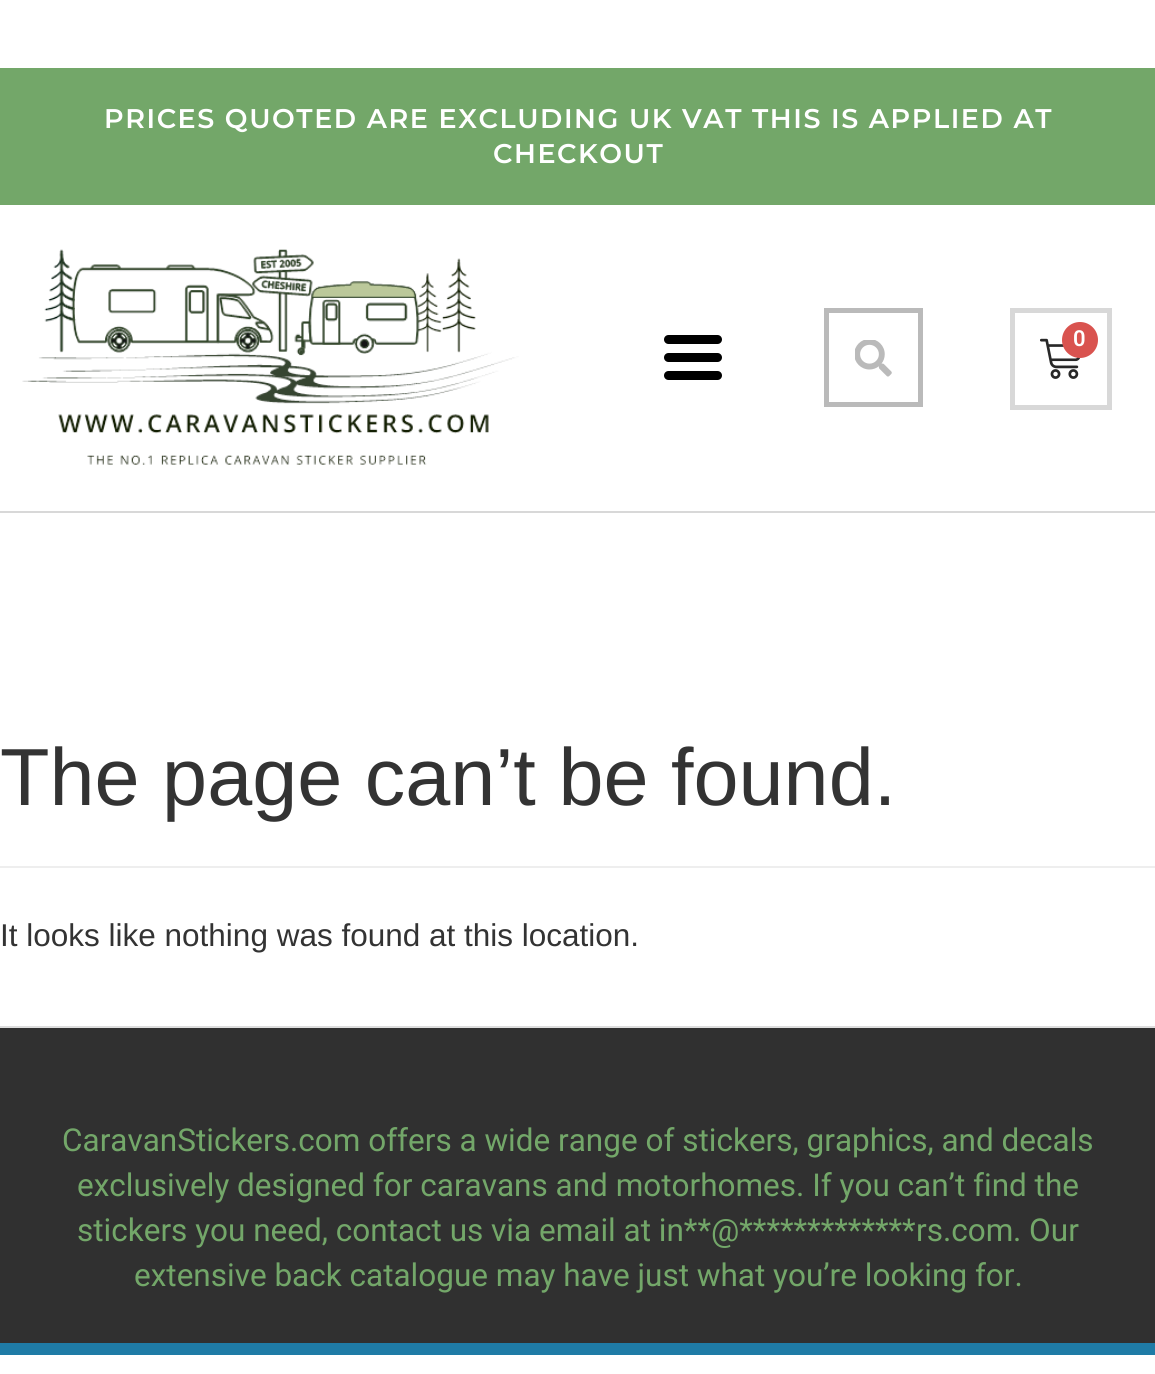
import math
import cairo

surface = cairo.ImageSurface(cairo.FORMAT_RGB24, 1155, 1374)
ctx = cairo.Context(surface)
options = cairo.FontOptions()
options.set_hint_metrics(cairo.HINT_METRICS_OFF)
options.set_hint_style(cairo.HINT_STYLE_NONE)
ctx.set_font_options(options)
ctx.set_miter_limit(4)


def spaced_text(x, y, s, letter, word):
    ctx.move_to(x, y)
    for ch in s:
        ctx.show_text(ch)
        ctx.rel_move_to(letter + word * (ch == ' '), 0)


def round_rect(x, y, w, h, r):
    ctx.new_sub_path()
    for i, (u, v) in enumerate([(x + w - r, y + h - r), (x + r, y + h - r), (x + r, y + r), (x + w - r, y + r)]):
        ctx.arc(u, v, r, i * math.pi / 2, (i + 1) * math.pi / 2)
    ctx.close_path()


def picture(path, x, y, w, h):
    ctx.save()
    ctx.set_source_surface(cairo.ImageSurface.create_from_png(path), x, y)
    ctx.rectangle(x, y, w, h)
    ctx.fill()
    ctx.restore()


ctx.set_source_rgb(1, 1, 1)
ctx.paint()
ctx.set_source_rgb(0.451, 0.655, 0.412)
ctx.rectangle(0, 68, 1155, 137)
ctx.fill()
ctx.select_font_face("Montserrat SemiBold")
ctx.set_font_size(27)
ctx.set_source_rgb(1, 1, 1)
spaced_text(104, 128, "PRICES QUOTED ARE EXCLUDING UK VAT THIS IS APPLIED AT", 1.57, 0)
spaced_text(493, 163, "CHECKOUT", 1.57, 0)
ctx.set_source_rgb(0.847, 0.847, 0.847)
ctx.rectangle(0, 511, 1155, 2)
ctx.fill()
picture("img1.png", 22, 249, 497, 216)
ctx.set_source_rgb(0, 0, 0)
round_rect(664, 353, 58, 9, 4.5)
ctx.fill()
round_rect(664, 335, 58, 9, 4.5)
ctx.fill()
round_rect(664, 371, 58, 9, 4.5)
ctx.fill()
ctx.rectangle(826.5, 310.5, 94, 94)
ctx.set_source_rgb(0.729, 0.729, 0.729)
ctx.set_line_width(5)
ctx.stroke()
picture("img2.png", 855, 340, 37, 37)
ctx.rectangle(1012.5, 310.5, 97, 97)
ctx.set_source_rgb(0.847, 0.847, 0.847)
ctx.stroke()
picture("img3.png", 1040, 338, 41, 41)
ctx.set_source_rgb(0.851, 0.325, 0.31)
ctx.arc(1080, 340, 18, 0, 2 * math.pi)
ctx.fill()
ctx.select_font_face("Roboto SemiBold")
ctx.set_font_size(22)
ctx.set_source_rgb(1, 1, 1)
ctx.move_to(1073, 346)
ctx.show_text("0")
ctx.set_source_rgb(0.933, 0.933, 0.933)
ctx.rectangle(0, 866, 1155, 2)
ctx.fill()
ctx.select_font_face("Liberation Sans")
ctx.set_font_size(81)
ctx.set_source_rgb(0.2, 0.2, 0.2)
ctx.move_to(0, 805)
ctx.show_text("The page can’t be found.")
ctx.set_font_size(31.5)
ctx.move_to(0, 946)
ctx.show_text("It looks like nothing was found at this location.")
ctx.set_source_rgb(0.188, 0.188, 0.188)
ctx.rectangle(0, 1028, 1155, 315)
ctx.fill()
ctx.set_source_rgb(0.867, 0.867, 0.867)
ctx.rectangle(0, 1026, 1155, 2)
ctx.fill()
ctx.select_font_face("Roboto")
ctx.set_source_rgb(0.451, 0.655, 0.412)
ctx.move_to(62, 1151)
ctx.show_text("CaravanStickers.com offers a wide range of stickers, graphics, and decals")
ctx.move_to(77, 1196)
ctx.show_text("exclusively designed for caravans and motorhomes. If you can’t find the")
ctx.move_to(77, 1241)
ctx.show_text("stickers you need, contact us via email at in**")
ctx.move_to(711, 1241)
ctx.show_text("@*************")
ctx.move_to(916, 1241)
ctx.show_text("rs.com")
ctx.move_to(1013, 1241)
ctx.show_text(". Our")
ctx.move_to(134, 1286)
ctx.show_text("extensive back catalogue may have just what you’re looking for.")
ctx.set_source_rgb(0.122, 0.482, 0.651)
ctx.rectangle(0, 1343, 1155, 12)
ctx.fill()
surface.write_to_png("page.png")
